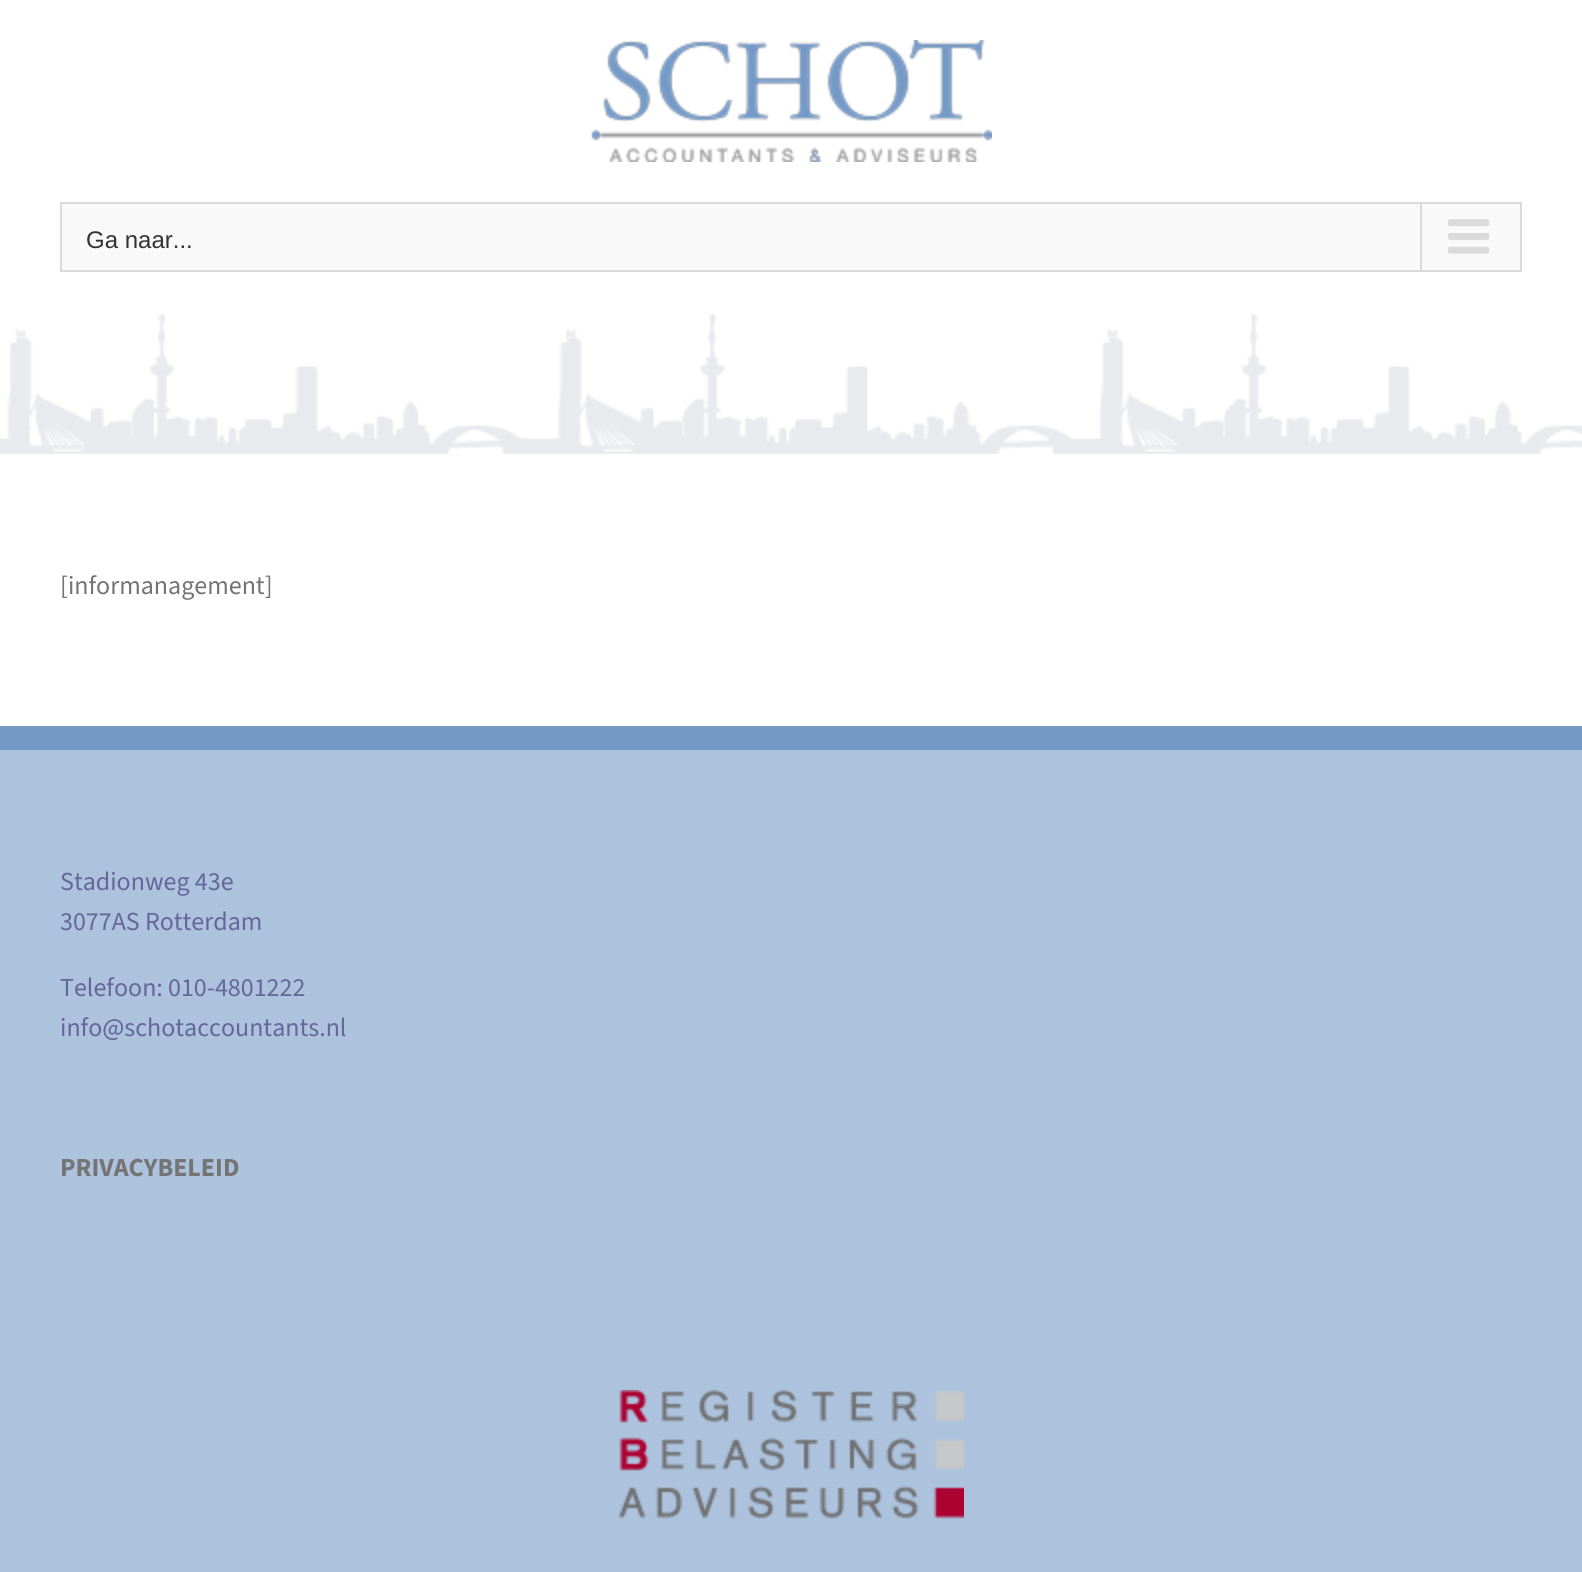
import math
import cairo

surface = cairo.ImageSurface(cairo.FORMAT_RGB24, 1582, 1572)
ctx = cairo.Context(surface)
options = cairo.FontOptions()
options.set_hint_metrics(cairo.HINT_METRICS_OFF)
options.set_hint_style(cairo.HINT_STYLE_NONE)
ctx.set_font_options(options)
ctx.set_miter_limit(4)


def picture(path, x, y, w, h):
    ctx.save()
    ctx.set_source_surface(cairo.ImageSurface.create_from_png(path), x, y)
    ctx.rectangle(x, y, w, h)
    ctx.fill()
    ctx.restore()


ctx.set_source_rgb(1, 1, 1)
ctx.paint()
picture("img1.png", 591, 40, 401, 122)
ctx.set_source_rgb(0.976, 0.976, 0.976)
ctx.rectangle(61, 203, 1460, 68)
ctx.fill_preserve()
ctx.set_source_rgb(0.855, 0.855, 0.855)
ctx.stroke()
ctx.select_font_face("Liberation Sans")
ctx.set_font_size(24)
ctx.set_source_rgb(0.2, 0.2, 0.2)
ctx.move_to(86, 248)
ctx.show_text("Ga naar...")
ctx.set_source_rgb(0.855, 0.855, 0.855)
ctx.rectangle(1420, 204, 2, 66)
ctx.fill()
picture("img2.png", 1448, 219, 42, 35)
picture("img3.png", 0, 314, 1582, 140)
ctx.select_font_face("Source Sans 3")
ctx.set_font_size(26)
ctx.set_source_rgb(0.455, 0.455, 0.455)
ctx.move_to(60, 594)
ctx.show_text("[informanagement]")
ctx.set_source_rgb(0.675, 0.761, 0.867)
ctx.rectangle(0, 750, 1582, 822)
ctx.fill()
ctx.set_source_rgb(0.455, 0.6, 0.776)
ctx.rectangle(0, 726, 1582, 24)
ctx.fill()
ctx.set_source_rgb(0.4, 0.4, 0.6)
ctx.move_to(60, 890)
ctx.show_text("Stadionweg 43e")
ctx.move_to(60, 930)
ctx.show_text("3077AS Rotterdam")
ctx.move_to(60, 996)
ctx.show_text("Telefoon: 010-4801222")
ctx.move_to(60, 1036)
ctx.show_text("info@schotaccountants.nl")
ctx.select_font_face("Source Sans 3", cairo.FONT_SLANT_NORMAL, cairo.FONT_WEIGHT_BOLD)
ctx.set_source_rgb(0.455, 0.455, 0.455)
ctx.move_to(60, 1176)
ctx.show_text("PRIVACYBELEID")
picture("img4.png", 618, 1390, 346, 129)
surface.write_to_png("page.png")
